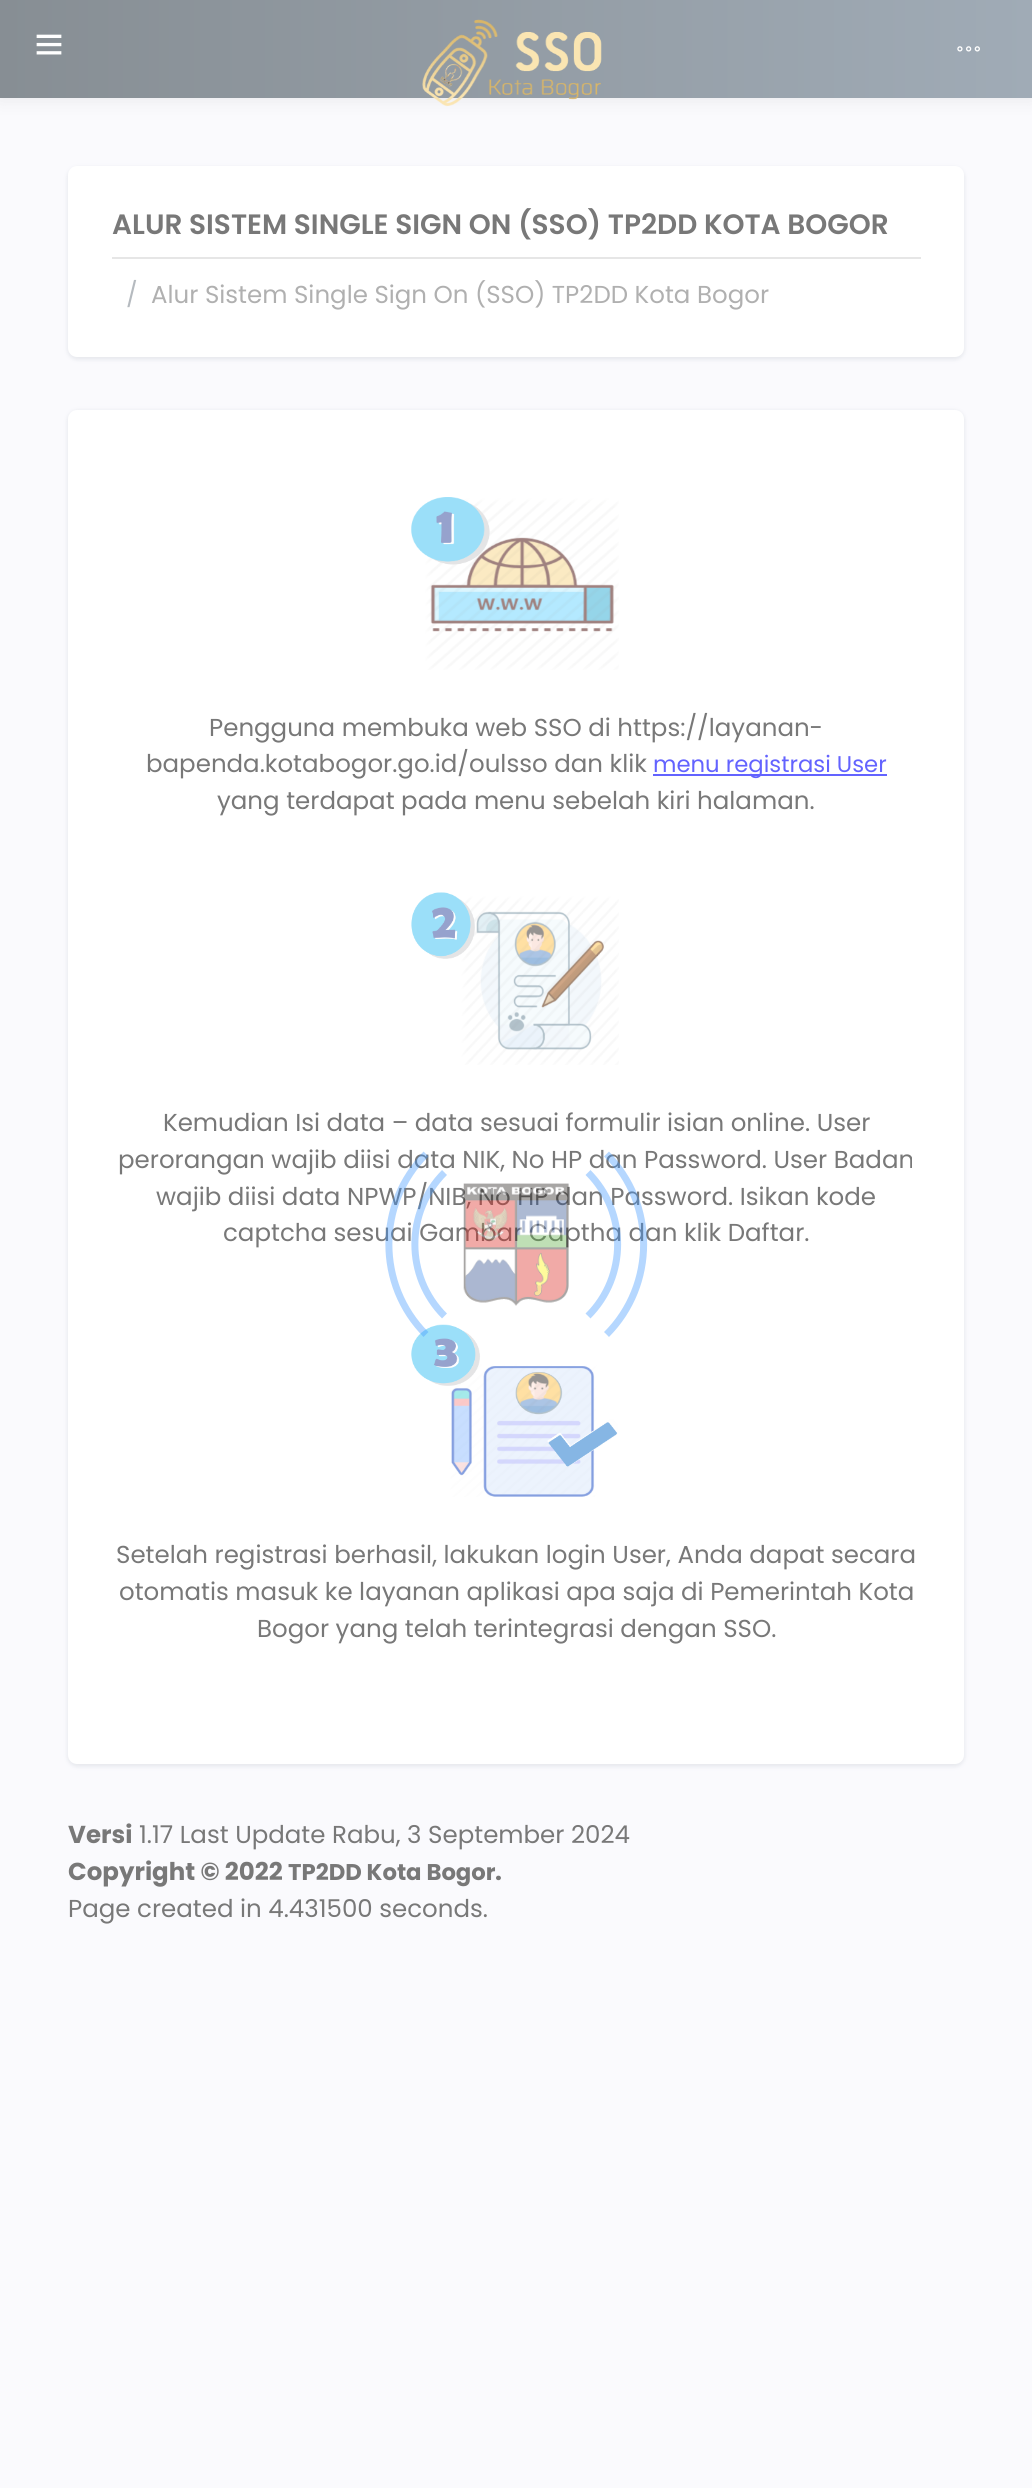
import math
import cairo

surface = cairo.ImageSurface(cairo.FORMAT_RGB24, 1032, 2488)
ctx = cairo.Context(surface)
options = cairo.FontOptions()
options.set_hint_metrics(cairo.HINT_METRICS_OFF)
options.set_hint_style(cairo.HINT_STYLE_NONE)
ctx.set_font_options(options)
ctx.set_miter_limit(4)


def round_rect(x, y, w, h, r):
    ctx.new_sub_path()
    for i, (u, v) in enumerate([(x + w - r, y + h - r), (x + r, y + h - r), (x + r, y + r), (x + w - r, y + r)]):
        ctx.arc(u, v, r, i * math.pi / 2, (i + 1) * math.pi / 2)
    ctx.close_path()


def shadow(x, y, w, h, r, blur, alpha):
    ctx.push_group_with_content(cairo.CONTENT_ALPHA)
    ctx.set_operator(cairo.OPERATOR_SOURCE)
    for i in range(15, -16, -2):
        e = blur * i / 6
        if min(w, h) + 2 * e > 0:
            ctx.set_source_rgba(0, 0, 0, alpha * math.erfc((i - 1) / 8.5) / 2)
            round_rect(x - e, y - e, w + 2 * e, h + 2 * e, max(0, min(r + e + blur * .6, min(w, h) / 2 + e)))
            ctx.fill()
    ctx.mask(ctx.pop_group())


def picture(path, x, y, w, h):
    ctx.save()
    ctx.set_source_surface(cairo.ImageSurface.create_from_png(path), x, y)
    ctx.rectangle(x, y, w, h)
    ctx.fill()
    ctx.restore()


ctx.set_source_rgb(0.98, 0.98, 0.992)
ctx.paint()
ctx.set_source_rgb(0.388, 0.388, 0.388)
shadow(0, 0, 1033, 98, 0, 9.5, 0.13)
gradient = cairo.LinearGradient(0, 49, 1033, 49)
gradient.add_color_stop_rgba(0, 0.529, 0.557, 0.58, 1)
gradient.add_color_stop_rgba(1, 0.627, 0.671, 0.714, 1)
ctx.set_source(gradient)
ctx.rectangle(0, 0, 1032, 98)
ctx.fill()
picture("img1.png", 36, 34, 26, 21)
picture("img2.png", 422, 19, 180, 88)
picture("img3.png", 957, 46, 23, 6)
ctx.set_source_rgb(0.4, 0.451, 0.522)
shadow(68, 168, 896, 191, 9, 2.5, 0.16)
ctx.set_source_rgb(1, 1, 1)
round_rect(68, 166, 896, 191, 9)
ctx.fill()
ctx.select_font_face("Poppins SemiBold")
ctx.set_font_size(28)
ctx.set_source_rgb(0.471, 0.471, 0.471)
ctx.move_to(112, 234)
ctx.show_text("ALUR SISTEM SINGLE SIGN ON (SSO) TP2DD KOTA BOGOR")
ctx.set_source_rgb(0.902, 0.902, 0.902)
ctx.rectangle(112, 257, 809, 2)
ctx.fill()
ctx.select_font_face("Poppins")
ctx.set_font_size(24.5)
ctx.set_source_rgb(0.71, 0.729, 0.749)
ctx.move_to(126, 303)
ctx.show_text("/")
ctx.set_source_rgb(0.69, 0.69, 0.69)
ctx.move_to(151, 303)
ctx.show_text("Alur Sistem Single Sign On (SSO) TP2DD Kota Bogor")
ctx.set_source_rgb(0.4, 0.451, 0.522)
shadow(68, 411, 896, 1355, 9, 2.5, 0.16)
ctx.set_source_rgb(1, 1, 1)
round_rect(68, 410, 896, 1354, 9)
ctx.fill()
picture("img4.png", 411, 497, 208, 173)
ctx.set_source_rgb(0.471, 0.471, 0.471)
ctx.move_to(209, 736)
ctx.show_text("Pengguna membuka web SSO di https://layanan-")
ctx.move_to(146, 772)
ctx.show_text("bapenda.kotabogor.go.id/oulsso dan klik")
ctx.set_source_rgb(0.388, 0.388, 1)
ctx.rectangle(653, 774, 234, 2)
ctx.fill()
ctx.set_font_size(22.75)
ctx.move_to(653, 772)
ctx.show_text("menu registrasi User")
ctx.set_font_size(24.5)
ctx.set_source_rgb(0.471, 0.471, 0.471)
ctx.move_to(217, 809)
ctx.show_text("yang terdapat pada menu sebelah kiri halaman.")
picture("img5.png", 411, 892, 208, 173)
ctx.move_to(163, 1131)
ctx.show_text("Kemudian Isi data – data sesuai formulir isian online. User")
ctx.move_to(118, 1168)
ctx.show_text("perorangan wajib diisi data NIK, No HP dan Password. User Badan")
ctx.move_to(156, 1205)
ctx.show_text("wajib diisi data NPWP/NIB, No HP dan Password. Isikan kode")
ctx.move_to(223, 1241)
ctx.show_text("captcha sesuai Gambar Captha dan klik Daftar.")
picture("img6.png", 411, 1324, 207, 173)
ctx.move_to(116, 1563)
ctx.show_text("Setelah registrasi berhasil, lakukan login User, Anda dapat secara")
ctx.move_to(119, 1600)
ctx.show_text("otomatis masuk ke layanan aplikasi apa saja di Pemerintah Kota")
ctx.move_to(257, 1637)
ctx.show_text("Bogor yang telah terintegrasi dengan SSO.")
ctx.select_font_face("Poppins", cairo.FONT_SLANT_NORMAL, cairo.FONT_WEIGHT_BOLD)
ctx.move_to(68, 1843)
ctx.show_text("Versi")
ctx.select_font_face("Poppins")
ctx.move_to(139, 1843)
ctx.show_text("1.17 Last Update Rabu, 3 September 2024")
ctx.select_font_face("Poppins", cairo.FONT_SLANT_NORMAL, cairo.FONT_WEIGHT_BOLD)
ctx.move_to(68, 1880)
ctx.show_text("Copyright © 2022")
ctx.set_font_size(22.75)
ctx.move_to(288, 1880)
ctx.show_text("TP2DD Kota Bogor")
ctx.set_font_size(24.5)
ctx.move_to(495, 1880)
ctx.show_text(".")
ctx.select_font_face("Poppins")
ctx.move_to(68, 1917)
ctx.show_text("Page created in 4.431500 seconds.")
picture("img7.png", 463, 1183, 106, 123)
ctx.new_path()
ctx.move_to(588, 1172.5)
ctx.curve_to(627.5, 1212, 627.5, 1276.5, 588, 1316)
ctx.set_source_rgba(0.251, 0.6, 1, 0.39)
ctx.set_line_width(7)
ctx.stroke()
ctx.new_path()
ctx.move_to(606.5, 1154)
ctx.curve_to(656, 1203.5, 656, 1285, 606.5, 1334.5)
ctx.stroke()
ctx.new_path()
ctx.move_to(444.5, 1316)
ctx.curve_to(405, 1276.5, 405, 1212, 444.5, 1172.5)
ctx.stroke()
ctx.new_path()
ctx.move_to(426, 1334.5)
ctx.curve_to(376.5, 1285, 376.5, 1203.5, 426, 1154)
ctx.stroke()
surface.write_to_png("page.png")
